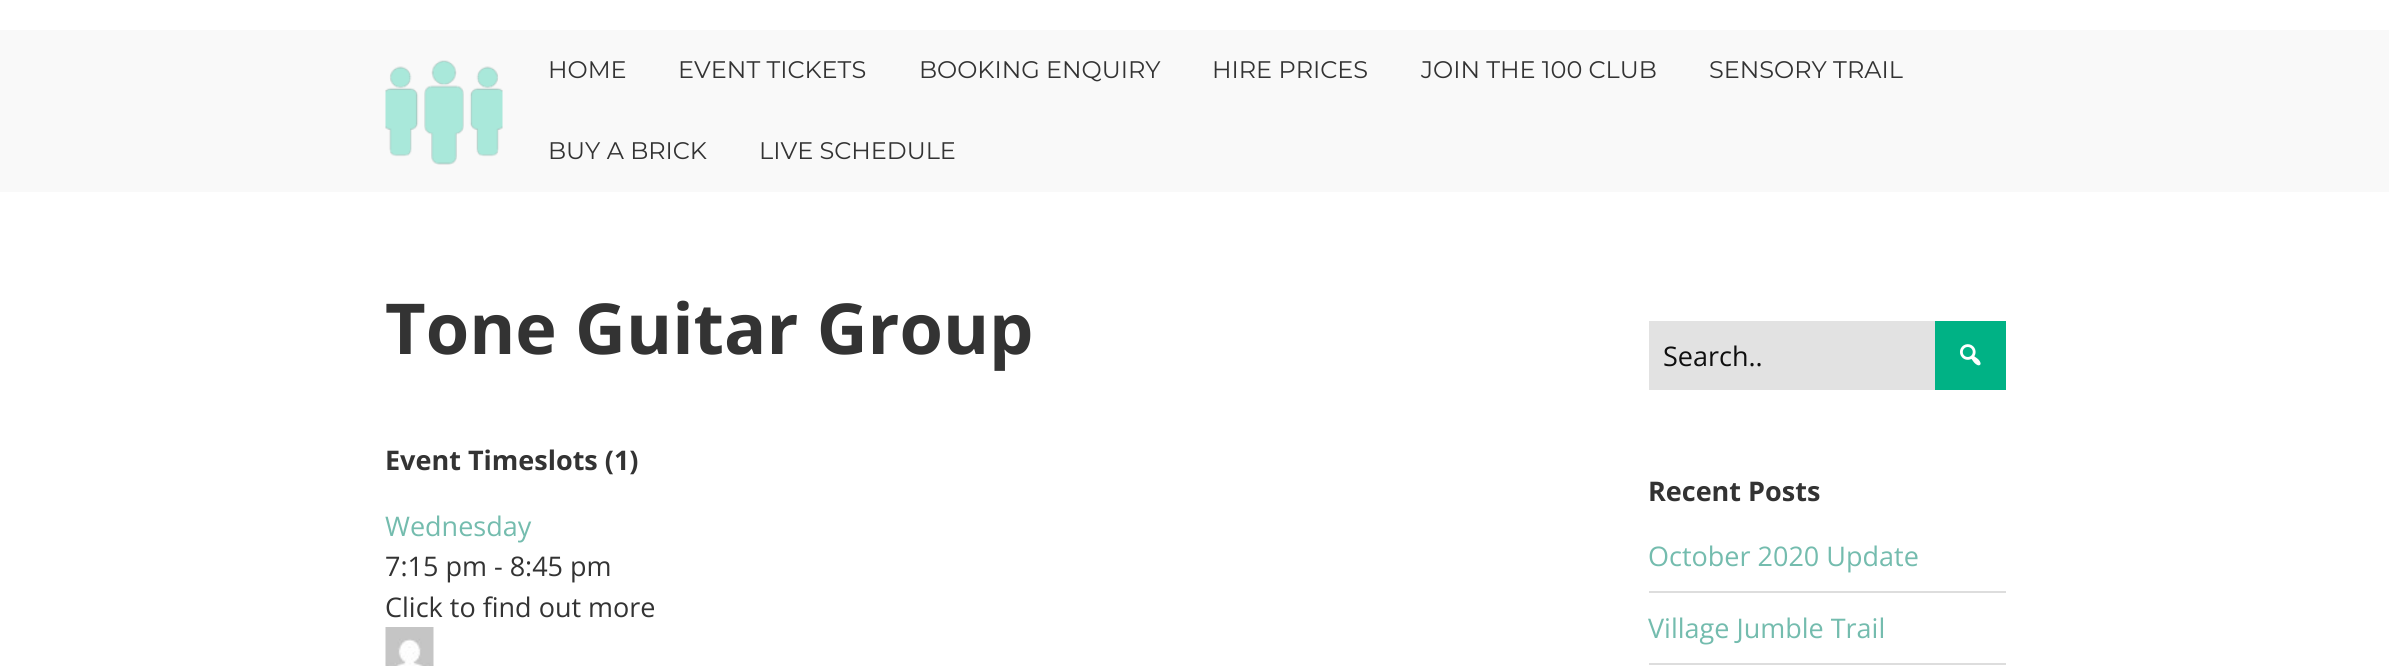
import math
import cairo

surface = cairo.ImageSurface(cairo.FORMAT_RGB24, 2389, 666)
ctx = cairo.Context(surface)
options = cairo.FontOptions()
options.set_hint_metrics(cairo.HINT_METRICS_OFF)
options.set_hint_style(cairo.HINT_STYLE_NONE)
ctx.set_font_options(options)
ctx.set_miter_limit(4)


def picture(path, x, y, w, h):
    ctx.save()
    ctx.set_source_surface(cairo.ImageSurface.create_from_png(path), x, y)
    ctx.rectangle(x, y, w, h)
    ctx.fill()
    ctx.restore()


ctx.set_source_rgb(1, 1, 1)
ctx.paint()
ctx.set_source_rgb(0.976, 0.976, 0.976)
ctx.rectangle(0, 30, 2389, 162)
ctx.fill()
picture("img1.png", 385, 60, 118, 105)
ctx.select_font_face("Montserrat")
ctx.set_font_size(24)
ctx.set_source_rgb(0.2, 0.2, 0.2)
ctx.move_to(548, 78)
ctx.show_text("HOME")
ctx.move_to(678, 78)
ctx.show_text("EVENT TICKETS")
ctx.move_to(919, 78)
ctx.show_text("BOOKING ENQUIRY")
ctx.move_to(1212, 78)
ctx.show_text("HIRE PRICES")
ctx.move_to(1421, 78)
ctx.show_text("JOIN THE 100 CLUB")
ctx.move_to(1709, 78)
ctx.show_text("SENSORY TRAIL")
ctx.move_to(548, 159)
ctx.show_text("BUY A BRICK")
ctx.move_to(759, 159)
ctx.show_text("LIVE SCHEDULE")
ctx.select_font_face("Open Sans", cairo.FONT_SLANT_NORMAL, cairo.FONT_WEIGHT_BOLD)
ctx.set_font_size(70.25)
ctx.move_to(385, 354)
ctx.show_text("Tone Guitar Group")
ctx.set_font_size(27)
ctx.move_to(385, 470)
ctx.show_text("Event Timeslots (1)")
ctx.select_font_face("Open Sans")
ctx.set_source_rgb(0.455, 0.737, 0.682)
ctx.move_to(385, 536)
ctx.show_text("Wednesday")
ctx.set_source_rgb(0.2, 0.2, 0.2)
ctx.move_to(385, 576)
ctx.show_text("7:15 pm - 8:45 pm")
ctx.move_to(385, 617)
ctx.show_text("Click to find out more")
picture("img2.png", 385, 627, 49, 39)
ctx.set_source_rgb(0.886, 0.886, 0.886)
ctx.rectangle(1649, 321, 286, 69)
ctx.fill()
ctx.set_source_rgb(0.059, 0.059, 0.059)
ctx.move_to(1663, 366)
ctx.show_text("Search..")
ctx.set_source_rgb(0, 0.698, 0.522)
ctx.rectangle(1935, 321, 71, 69)
ctx.fill()
picture("img3.png", 1960, 344, 21, 22)
ctx.select_font_face("Open Sans", cairo.FONT_SLANT_NORMAL, cairo.FONT_WEIGHT_BOLD)
ctx.set_source_rgb(0.2, 0.2, 0.2)
ctx.move_to(1648, 501)
ctx.show_text("Recent Posts")
ctx.set_source_rgb(0.867, 0.867, 0.867)
ctx.rectangle(1649, 591, 357, 2)
ctx.fill()
ctx.select_font_face("Open Sans")
ctx.set_source_rgb(0.455, 0.737, 0.682)
ctx.move_to(1648, 566)
ctx.show_text("October 2020 Update")
ctx.set_source_rgb(0.867, 0.867, 0.867)
ctx.rectangle(1649, 663, 357, 2)
ctx.fill()
ctx.set_source_rgb(0.455, 0.737, 0.682)
ctx.move_to(1648, 638)
ctx.show_text("Village Jumble Trail")
surface.write_to_png("page.png")
